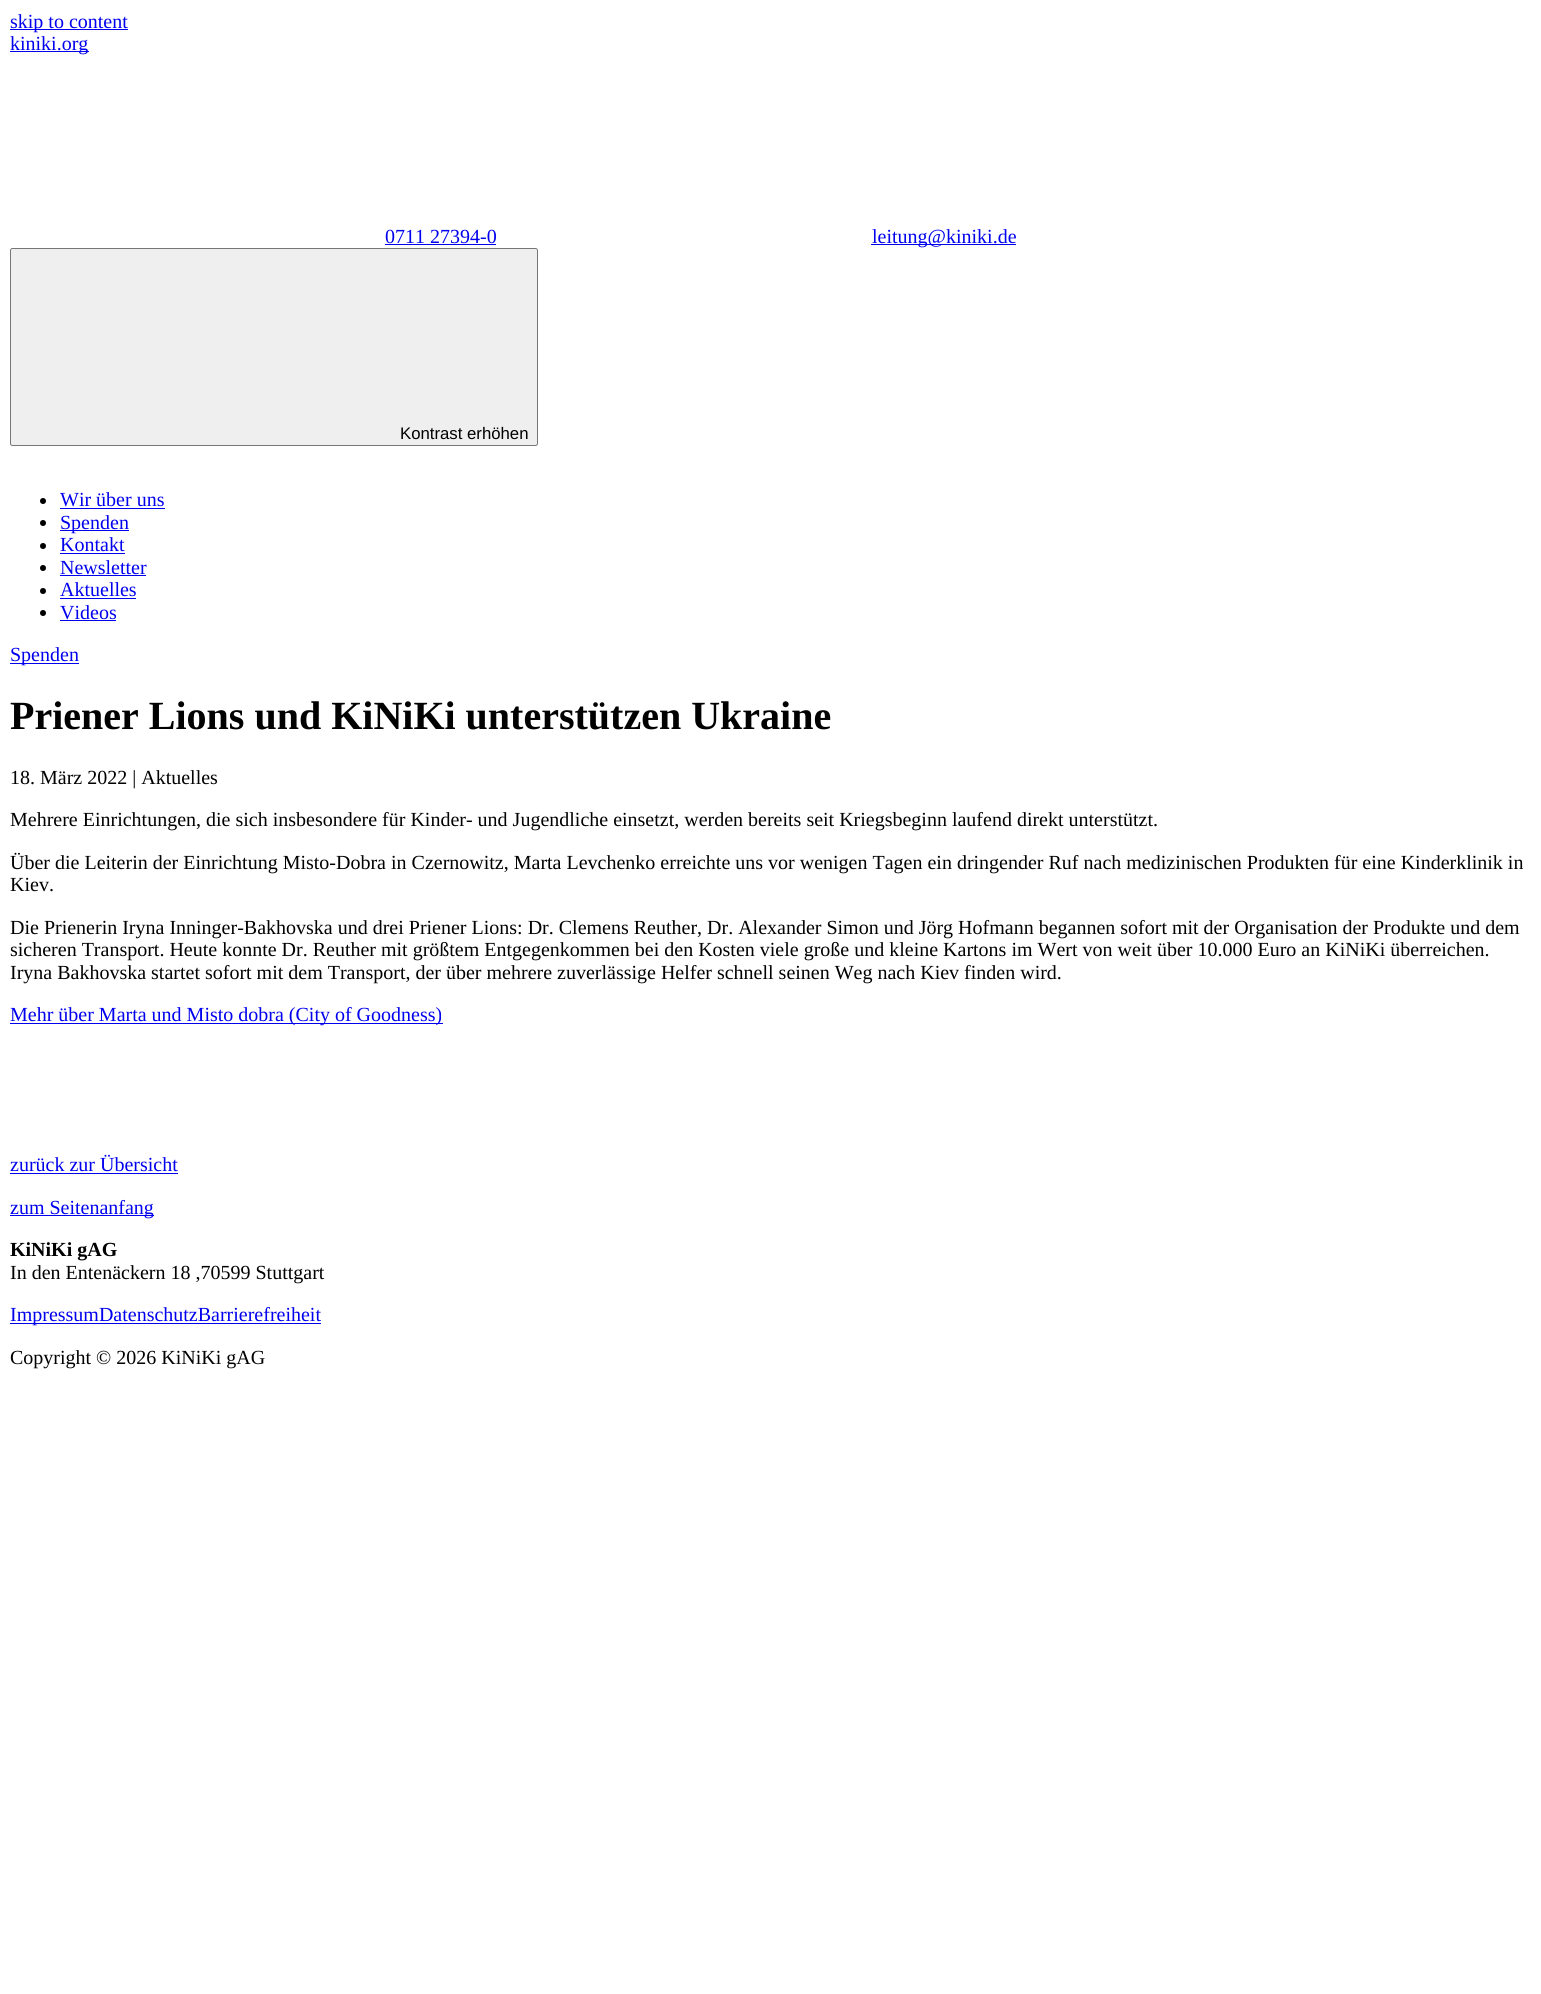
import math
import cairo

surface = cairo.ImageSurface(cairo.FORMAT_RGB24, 1541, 1994)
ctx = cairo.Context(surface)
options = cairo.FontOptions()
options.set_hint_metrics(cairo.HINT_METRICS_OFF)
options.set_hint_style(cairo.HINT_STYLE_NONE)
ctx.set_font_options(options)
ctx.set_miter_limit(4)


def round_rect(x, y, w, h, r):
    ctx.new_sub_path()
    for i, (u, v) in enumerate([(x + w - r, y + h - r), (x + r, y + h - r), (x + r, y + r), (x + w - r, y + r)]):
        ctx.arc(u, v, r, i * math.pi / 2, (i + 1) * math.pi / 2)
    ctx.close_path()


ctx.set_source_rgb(1, 1, 1)
ctx.paint()
ctx.set_source_rgb(0, 0, 0.933)
ctx.rectangle(10, 29, 118, 1)
ctx.fill()
ctx.select_font_face("Liberation Serif")
ctx.set_font_size(20)
ctx.move_to(10, 28)
ctx.show_text("skip to content")
ctx.rectangle(10, 51, 79, 1)
ctx.fill()
ctx.move_to(10, 50)
ctx.show_text("kiniki.org")
ctx.move_to(385, 243)
ctx.show_text("0711 27394-0")
ctx.rectangle(385, 244, 111, 1)
ctx.fill()
ctx.rectangle(871, 244, 145, 1)
ctx.fill()
ctx.move_to(872, 243)
ctx.show_text("leitung@kiniki.de")
ctx.set_source_rgb(0.937, 0.937, 0.937)
round_rect(10.5, 248.5, 527, 197, 2)
ctx.fill_preserve()
ctx.set_source_rgb(0.463, 0.463, 0.463)
ctx.set_line_width(1)
ctx.stroke()
ctx.select_font_face("Liberation Sans")
ctx.set_font_size(16.75)
ctx.set_source_rgb(0, 0, 0)
ctx.move_to(400, 439)
ctx.show_text("Kontrast erhöhen")
ctx.new_path()
ctx.arc(43, 501, 3, 0, 2 * math.pi)
ctx.fill()
ctx.select_font_face("Liberation Serif")
ctx.set_font_size(20)
ctx.set_source_rgb(0, 0, 0.933)
ctx.move_to(60, 506)
ctx.show_text("Wir über uns")
ctx.rectangle(60, 508, 105, 1)
ctx.fill()
ctx.set_source_rgb(0, 0, 0)
ctx.arc(43, 523, 3, 0, 2 * math.pi)
ctx.fill()
ctx.set_source_rgb(0, 0, 0.933)
ctx.rectangle(60, 530, 69, 1)
ctx.fill()
ctx.move_to(60, 529)
ctx.show_text("Spenden")
ctx.set_source_rgb(0, 0, 0)
ctx.new_path()
ctx.arc(43, 546, 3, 0, 2 * math.pi)
ctx.fill()
ctx.set_source_rgb(0, 0, 0.933)
ctx.move_to(60, 551)
ctx.show_text("Kontakt")
ctx.rectangle(60, 553, 65, 1)
ctx.fill()
ctx.set_source_rgb(0, 0, 0)
ctx.arc(43, 568, 3, 0, 2 * math.pi)
ctx.fill()
ctx.set_source_rgb(0, 0, 0.933)
ctx.move_to(60, 574)
ctx.show_text("Newsletter")
ctx.rectangle(60, 575, 86, 1)
ctx.fill()
ctx.set_source_rgb(0, 0, 0)
ctx.arc(43, 591, 3, 0, 2 * math.pi)
ctx.fill()
ctx.set_source_rgb(0, 0, 0.933)
ctx.move_to(60, 596)
ctx.show_text("Aktuelles")
ctx.rectangle(60, 598, 76, 1)
ctx.fill()
ctx.set_source_rgb(0, 0, 0)
ctx.arc(43, 613, 3, 0, 2 * math.pi)
ctx.fill()
ctx.set_source_rgb(0, 0, 0.933)
ctx.move_to(60, 619)
ctx.show_text("Videos")
ctx.rectangle(60, 620, 56, 1)
ctx.fill()
ctx.rectangle(10, 663, 69, 1)
ctx.fill()
ctx.move_to(10, 661)
ctx.show_text("Spenden")
ctx.select_font_face("Liberation Serif", cairo.FONT_SLANT_NORMAL, cairo.FONT_WEIGHT_BOLD)
ctx.set_font_size(40)
ctx.set_source_rgb(0, 0, 0)
ctx.move_to(10, 729)
ctx.show_text("Priener Lions und KiNiKi unterstützen Ukraine")
ctx.select_font_face("Liberation Serif")
ctx.set_font_size(20)
ctx.move_to(10, 784)
ctx.show_text("18. März 2022 | Aktuelles")
ctx.move_to(10, 826)
ctx.show_text("Mehrere Einrichtungen, die sich insbesondere für Kinder- und Jugendliche einsetzt, werden bereits seit Kriegsbeginn laufend direkt unterstützt.")
ctx.move_to(10, 869)
ctx.show_text("Über die Leiterin der Einrichtung Misto-Dobra in Czernowitz, Marta Levchenko erreichte uns vor wenigen Tagen ein dringender Ruf nach medizinischen Produkten für eine Kinderklinik in")
ctx.move_to(10, 891)
ctx.show_text("Kiev.")
ctx.move_to(10, 934)
ctx.show_text("Die Prienerin Iryna Inninger-Bakhovska und drei Priener Lions: Dr. Clemens Reuther, Dr. Alexander Simon und Jörg Hofmann begannen sofort mit der Organisation der Produkte und dem")
ctx.move_to(10, 956)
ctx.show_text("sicheren Transport. Heute konnte Dr. Reuther mit größtem Entgegenkommen bei den Kosten viele große und kleine Kartons im Wert von weit über 10.000 Euro an KiNiKi überreichen.")
ctx.move_to(10, 979)
ctx.show_text("Iryna Bakhovska startet sofort mit dem Transport, der über mehrere zuverlässige Helfer schnell seinen Weg nach Kiev finden wird.")
ctx.set_source_rgb(0, 0, 0.933)
ctx.rectangle(10, 1023, 433, 1)
ctx.fill()
ctx.move_to(10, 1021)
ctx.show_text("Mehr über Marta und Misto dobra (City of Goodness)")
ctx.move_to(10, 1171)
ctx.show_text("zurück zur Übersicht")
ctx.rectangle(10, 1173, 168, 1)
ctx.fill()
ctx.rectangle(10, 1215, 144, 1)
ctx.fill()
ctx.move_to(10, 1214)
ctx.show_text("zum Seitenanfang")
ctx.select_font_face("Liberation Serif", cairo.FONT_SLANT_NORMAL, cairo.FONT_WEIGHT_BOLD)
ctx.set_source_rgb(0, 0, 0)
ctx.move_to(10, 1256)
ctx.show_text("KiNiKi gAG")
ctx.select_font_face("Liberation Serif")
ctx.move_to(10, 1279)
ctx.show_text("In den Entenäckern 18 ,70599 Stuttgart")
ctx.set_source_rgb(0, 0, 0.933)
ctx.rectangle(10, 1323, 311, 1)
ctx.fill()
ctx.move_to(10, 1321)
ctx.show_text("ImpressumDatenschutzBarrierefreiheit")
ctx.set_source_rgb(0, 0, 0)
ctx.move_to(10, 1364)
ctx.show_text("Copyright © 2026 KiNiKi gAG")
surface.write_to_png("page.png")
